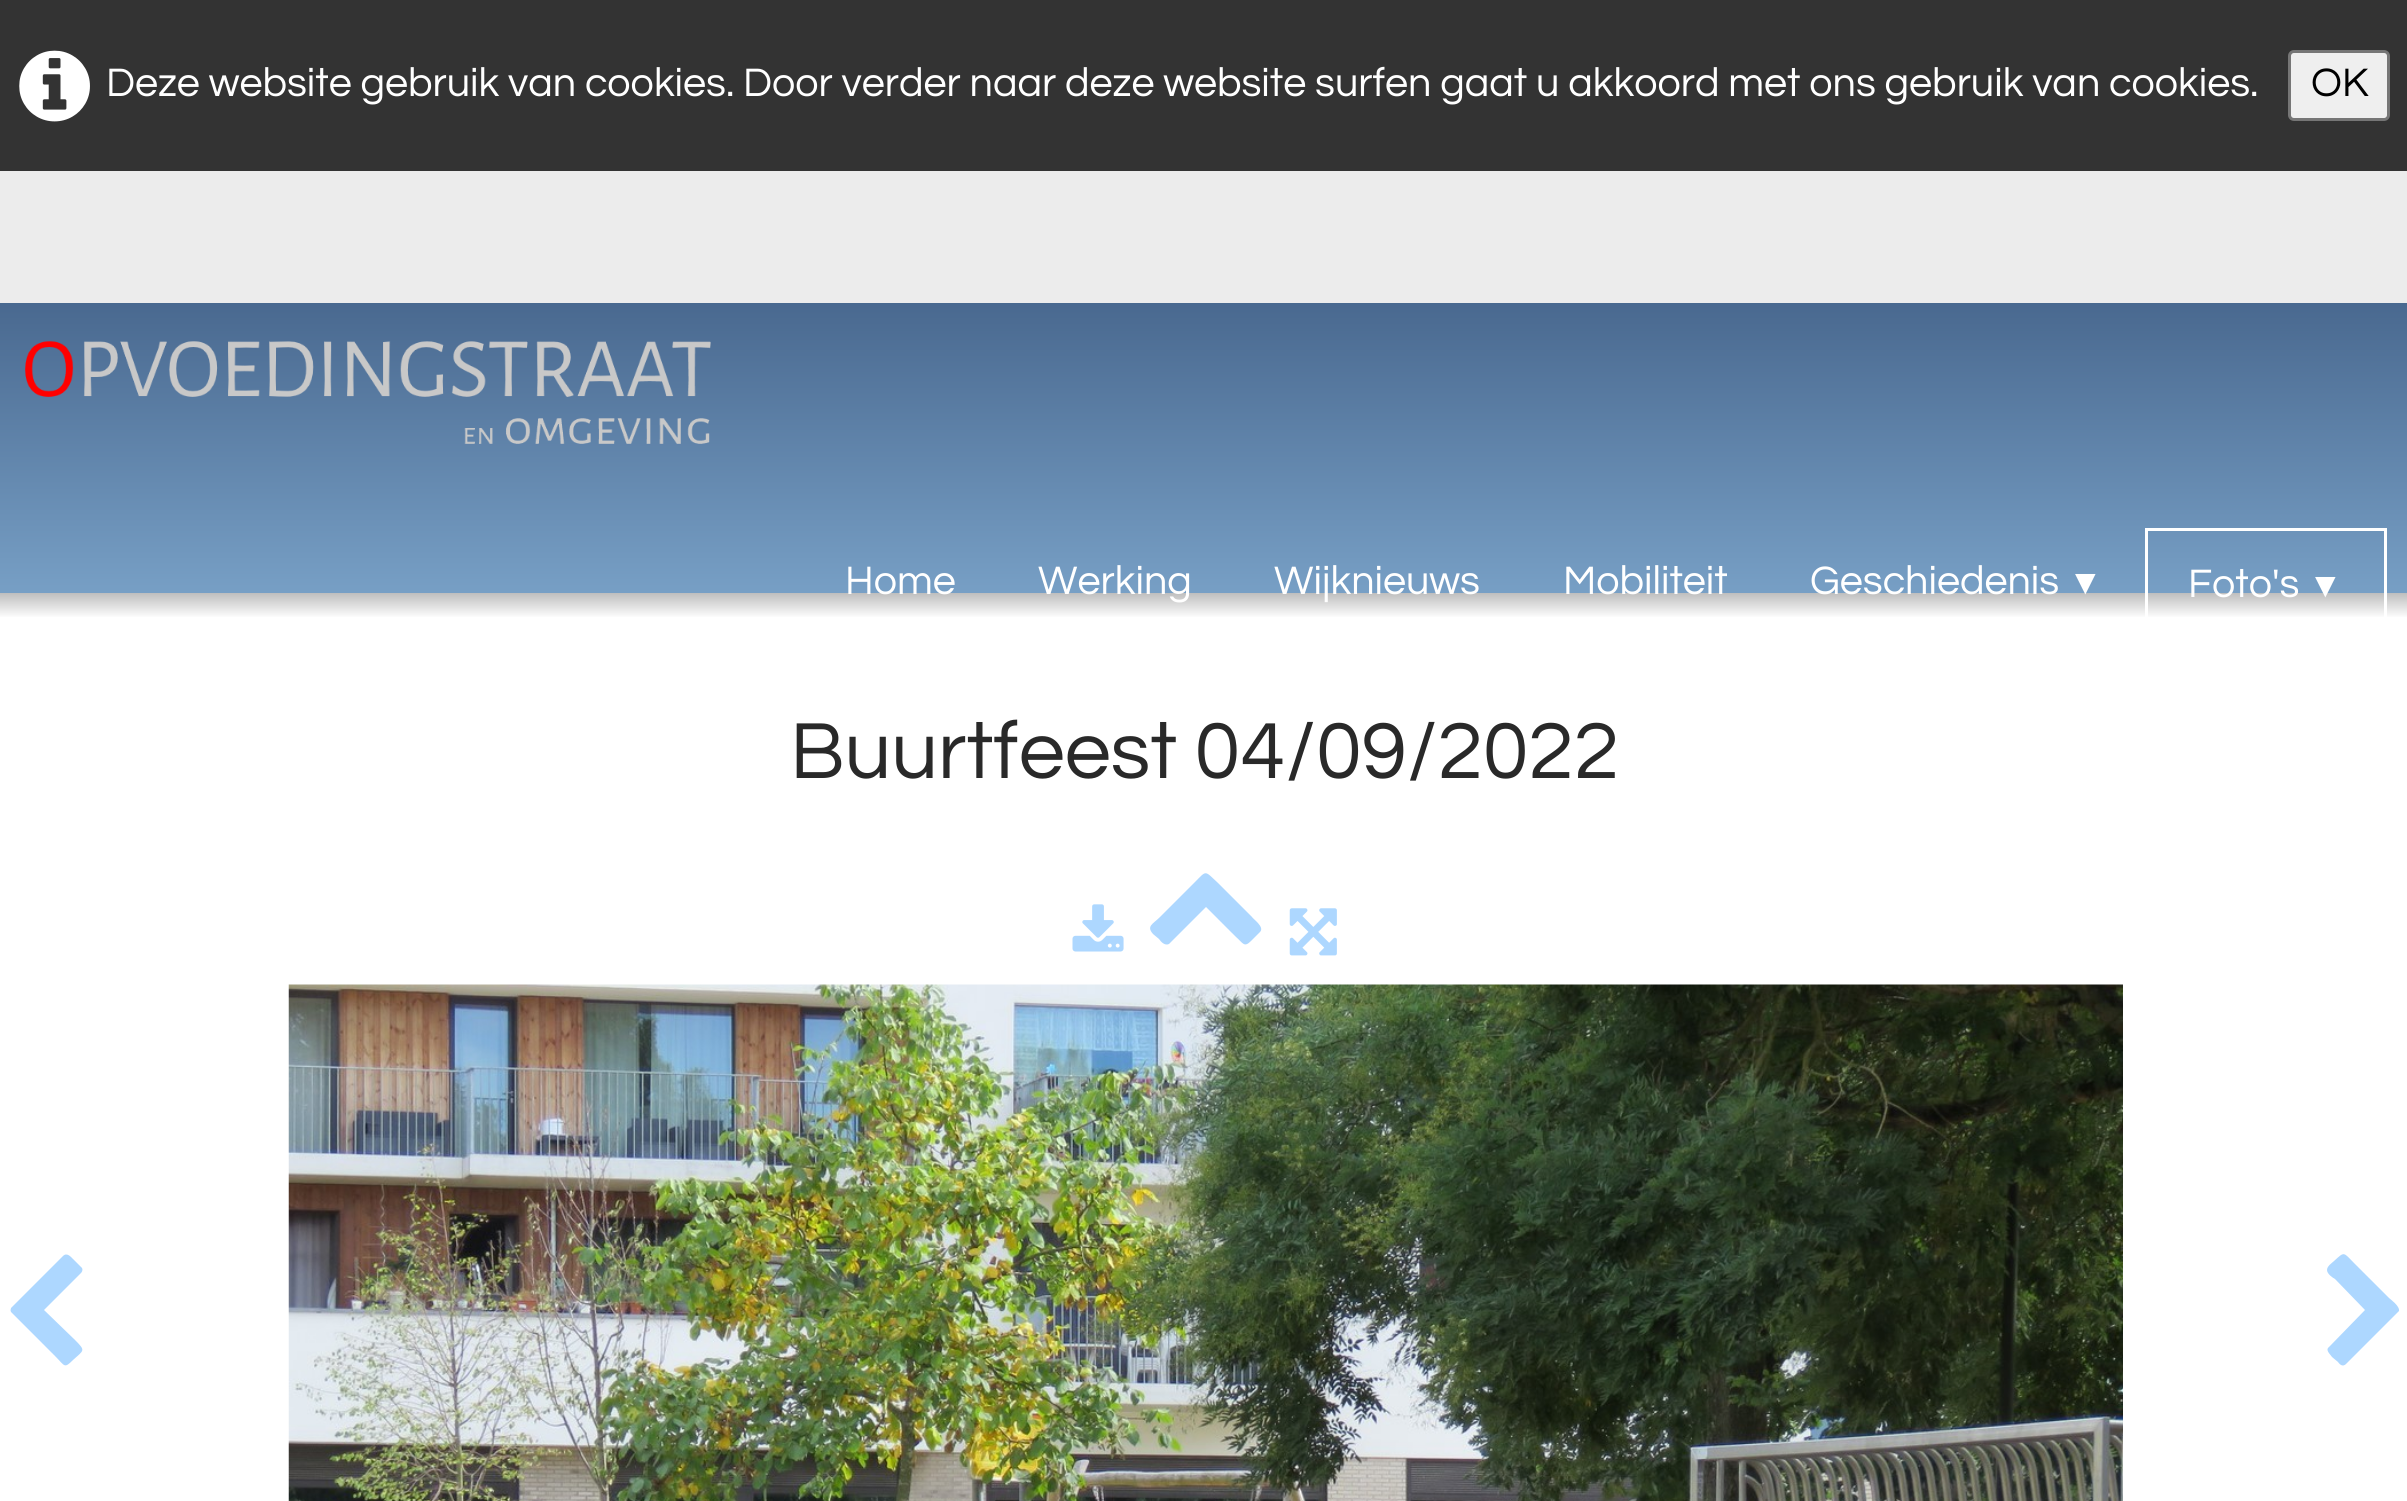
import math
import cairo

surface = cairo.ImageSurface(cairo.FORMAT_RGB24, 2407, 1501)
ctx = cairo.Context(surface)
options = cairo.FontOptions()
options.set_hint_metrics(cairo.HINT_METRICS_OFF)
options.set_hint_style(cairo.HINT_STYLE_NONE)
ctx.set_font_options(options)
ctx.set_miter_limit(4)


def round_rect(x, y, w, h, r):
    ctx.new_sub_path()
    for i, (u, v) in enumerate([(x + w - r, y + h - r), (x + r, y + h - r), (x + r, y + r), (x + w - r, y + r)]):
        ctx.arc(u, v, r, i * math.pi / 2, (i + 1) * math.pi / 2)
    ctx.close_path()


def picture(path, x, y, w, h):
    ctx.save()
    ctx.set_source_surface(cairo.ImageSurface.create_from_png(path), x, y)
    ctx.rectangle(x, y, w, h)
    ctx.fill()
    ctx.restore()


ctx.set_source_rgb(1, 1, 1)
ctx.paint()
ctx.set_source_rgb(0.2, 0.2, 0.2)
ctx.rectangle(0, 0, 2407, 171)
ctx.fill()
picture("img1.png", 19, 50, 71, 72)
ctx.select_font_face("Questrial")
ctx.set_font_size(41.25)
ctx.set_source_rgb(1, 1, 1)
ctx.move_to(106, 96)
ctx.show_text("Deze website gebruik van cookies. Door verder naar deze website surfen gaat u akkoord met ons gebruik van cookies.")
ctx.set_source_rgb(0.937, 0.937, 0.937)
round_rect(2289.5, 51.5, 99, 68, 4.5)
ctx.fill_preserve()
ctx.set_source_rgb(0.463, 0.463, 0.463)
ctx.set_line_width(3)
ctx.stroke()
ctx.set_source_rgb(0, 0, 0)
ctx.move_to(2311, 96)
ctx.show_text("OK")
gradient = cairo.LinearGradient(1205, 170, 1205, 668)
gradient.add_color_stop_rgba(0.1, 0.235, 0.349, 0.502, 1)
gradient.add_color_stop_rgba(0.85, 0.467, 0.624, 0.773, 1)
gradient.add_color_stop_rgba(0.85, 0.749, 0.749, 0.749, 1)
gradient.add_color_stop_rgba(0.9, 1, 1, 1, 1)
ctx.set_source(gradient)
ctx.rectangle(0, 303, 2407, 314)
ctx.fill()
ctx.set_source_rgb(0.922, 0.922, 0.922)
ctx.rectangle(0, 171, 2407, 132)
ctx.fill()
picture("img2.png", 25, 341, 686, 103)
ctx.set_source_rgb(1, 1, 1)
ctx.move_to(845, 594)
ctx.show_text("Home")
ctx.move_to(1038, 594)
ctx.show_text("Werking")
ctx.move_to(1274, 594)
ctx.show_text("Wijknieuws")
ctx.move_to(1563, 594)
ctx.show_text("Mobiliteit")
ctx.move_to(1810, 594)
ctx.show_text("Geschiedenis")
ctx.select_font_face("Liberation Serif")
ctx.set_font_size(35)
ctx.move_to(2068, 594)
ctx.show_text("▼")
ctx.rectangle(2146.5, 529.5, 239, 115)
ctx.stroke()
ctx.select_font_face("Questrial")
ctx.set_font_size(41.25)
ctx.move_to(2188, 597)
ctx.show_text("Foto's")
ctx.select_font_face("Liberation Serif")
ctx.set_font_size(35)
ctx.move_to(2308, 597)
ctx.show_text("▼")
ctx.select_font_face("Questrial")
ctx.set_font_size(82.5)
ctx.set_source_rgb(0.161, 0.161, 0.161)
ctx.move_to(790, 778)
ctx.show_text("Buurtfeest 04/09/2022")
picture("img3.png", 1072, 904, 52, 48)
ctx.set_source_rgb(0.678, 0.843, 1)
ctx.new_path()
ctx.move_to(1260, 932)
ctx.line_to(1251, 941)
ctx.curve_to(1244, 948, 1243, 943, 1236, 937)
ctx.line_to(1206, 907)
ctx.line_to(1169, 944)
ctx.curve_to(1165, 946, 1161, 942, 1159, 939)
ctx.line_to(1153, 934)
ctx.curve_to(1146, 926, 1153, 924, 1160, 917)
ctx.line_to(1194, 883)
ctx.curve_to(1207, 870, 1204, 870, 1218, 883)
ctx.line_to(1252, 917)
ctx.curve_to(1253, 919, 1265, 927, 1260, 932)
ctx.close_path()
ctx.fill()
picture("img4.png", 1289, 908, 48, 48)
ctx.new_path()
ctx.move_to(81, 1273)
ctx.line_to(44, 1310)
ctx.line_to(75, 1340)
ctx.curve_to(86, 1351, 84, 1350, 73, 1360)
ctx.curve_to(64, 1369, 65, 1366, 55, 1356)
ctx.line_to(11, 1312)
ctx.curve_to(10, 1310, 11, 1309, 11, 1308)
ctx.line_to(63, 1256)
ctx.curve_to(67, 1252, 71, 1257, 73, 1259)
ctx.line_to(82, 1268)
ctx.curve_to(83, 1270, 82, 1272, 81, 1273)
ctx.close_path()
ctx.fill()
picture("img5.png", 288, 984, 1835, 517)
ctx.new_path()
ctx.move_to(2397, 1313)
ctx.line_to(2346, 1364)
ctx.curve_to(2343, 1367, 2340, 1365, 2338, 1362)
ctx.line_to(2332, 1357)
ctx.curve_to(2330, 1354, 2325, 1350, 2329, 1347)
ctx.line_to(2365, 1310)
ctx.line_to(2335, 1279)
ctx.curve_to(2333, 1278, 2327, 1274, 2327, 1270)
ctx.curve_to(2327, 1266, 2332, 1263, 2334, 1261)
ctx.curve_to(2345, 1251, 2343, 1252, 2355, 1264)
ctx.line_to(2389, 1298)
ctx.curve_to(2390, 1299, 2400, 1306, 2399, 1311)
ctx.close_path()
ctx.fill()
surface.write_to_png("page.png")
